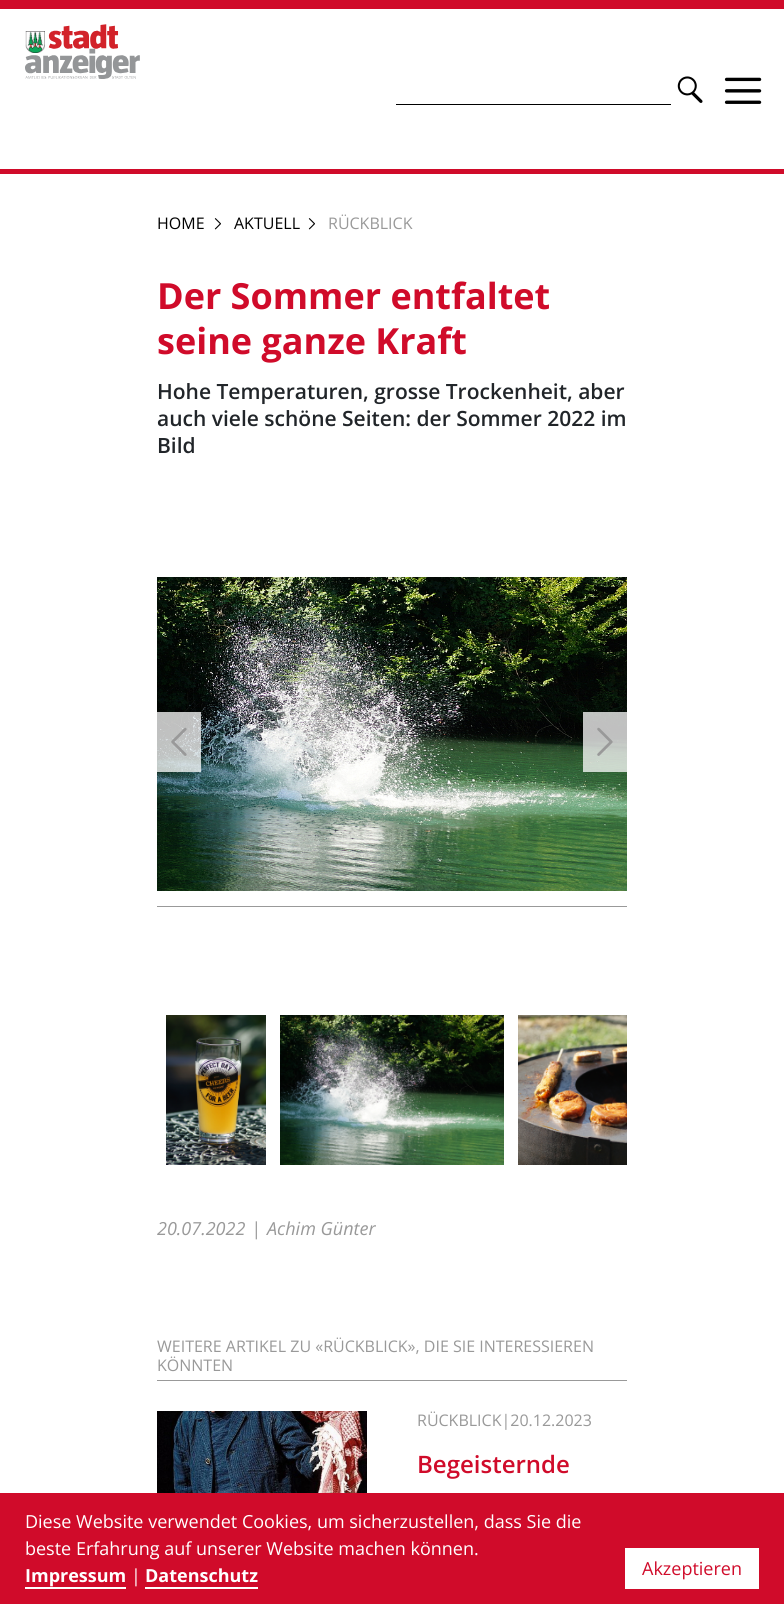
import math
import cairo

surface = cairo.ImageSurface(cairo.FORMAT_RGB24, 784, 1604)
ctx = cairo.Context(surface)
options = cairo.FontOptions()
options.set_hint_metrics(cairo.HINT_METRICS_OFF)
options.set_hint_style(cairo.HINT_STYLE_NONE)
ctx.set_font_options(options)
ctx.set_miter_limit(4)


def picture(path, x, y, w, h):
    ctx.save()
    ctx.set_source_surface(cairo.ImageSurface.create_from_png(path), x, y)
    ctx.rectangle(x, y, w, h)
    ctx.fill()
    ctx.restore()


ctx.set_source_rgb(1, 1, 1)
ctx.paint()
ctx.set_source_rgb(0.816, 0.043, 0.165)
ctx.rectangle(0, 0, 784, 9)
ctx.fill()
ctx.rectangle(0, 169, 784, 5)
ctx.fill()
picture("img1.png", 25, 24, 115, 55)
picture("img2.png", 677, 76, 26, 27)
ctx.set_source_rgb(0, 0, 0)
ctx.rectangle(396, 104, 275, 1)
ctx.fill()
picture("img3.png", 724, 77, 38, 27)
ctx.select_font_face("Open Sans")
ctx.set_font_size(16)
ctx.move_to(157, 229)
ctx.show_text("HOME")
picture("img4.png", 214, 218, 7, 12)
ctx.move_to(234, 229)
ctx.show_text("AKTUELL")
picture("img4.png", 308, 218, 7, 12)
ctx.set_source_rgb(0.6, 0.6, 0.6)
ctx.move_to(328, 229)
ctx.show_text("RÜCKBLICK")
ctx.select_font_face("Open Sans", cairo.FONT_SLANT_NORMAL, cairo.FONT_WEIGHT_BOLD)
ctx.set_font_size(36)
ctx.set_source_rgb(0.816, 0.043, 0.165)
ctx.move_to(157, 309)
ctx.show_text("Der Sommer entfaltet")
ctx.move_to(157, 354)
ctx.show_text("seine ganze Kraft")
ctx.select_font_face("Open Sans SemiBold")
ctx.set_font_size(21)
ctx.set_source_rgb(0.129, 0.145, 0.161)
ctx.move_to(157, 399)
ctx.show_text("Hohe Temperaturen, grosse Trockenheit, aber")
ctx.move_to(157, 426)
ctx.show_text("auch viele schöne Seiten: der Sommer 2022 im")
ctx.move_to(157, 453)
ctx.show_text("Bild")
ctx.set_source_rgb(0.6, 0.6, 0.6)
ctx.rectangle(157, 906, 470, 1)
ctx.fill()
picture("img5.png", 157, 577, 470, 314)
ctx.set_source_rgba(1, 1, 1, 0.75)
ctx.rectangle(157, 712, 44, 60)
ctx.fill()
picture("img6.png", 171, 727, 16, 29)
ctx.rectangle(583, 712, 44, 60)
ctx.fill()
picture("img7.png", 597, 727, 16, 29)
picture("img8.png", 166, 1015, 100, 150)
picture("img9.png", 280, 1015, 224, 150)
picture("img10.png", 518, 1015, 109, 150)
ctx.select_font_face("Open Sans", cairo.FONT_SLANT_ITALIC)
ctx.set_font_size(18)
ctx.set_source_rgb(0.6, 0.6, 0.6)
ctx.move_to(157, 1235)
ctx.show_text("20.07.2022")
ctx.move_to(251, 1235)
ctx.show_text("|")
ctx.move_to(267, 1235)
ctx.show_text("Achim Günter")
ctx.rectangle(157, 1380, 470, 1)
ctx.fill()
ctx.select_font_face("Open Sans")
ctx.set_font_size(16)
ctx.move_to(157, 1352)
ctx.show_text("WEITERE ARTIKEL ZU «RÜCKBLICK», DIE SIE INTERESSIEREN")
ctx.move_to(157, 1371)
ctx.show_text("KÖNNTEN")
picture("img11.png", 157, 1411, 210, 82)
ctx.move_to(417, 1426)
ctx.show_text("RÜCKBLICK|20.12.2023")
ctx.select_font_face("Open Sans SemiBold")
ctx.set_font_size(24)
ctx.set_source_rgb(0.816, 0.043, 0.165)
ctx.move_to(417, 1473)
ctx.show_text("Begeisternde")
ctx.rectangle(0, 1493, 784, 111)
ctx.fill()
ctx.select_font_face("Open Sans")
ctx.set_font_size(18)
ctx.set_source_rgb(1, 1, 1)
ctx.move_to(25, 1528)
ctx.show_text("Diese Website verwendet Cookies, um sicherzustellen, dass Sie die")
ctx.move_to(25, 1555)
ctx.show_text("beste Erfahrung auf unserer Website machen können.")
ctx.select_font_face("Open Sans", cairo.FONT_SLANT_NORMAL, cairo.FONT_WEIGHT_BOLD)
ctx.move_to(25, 1582)
ctx.show_text("Impressum")
ctx.rectangle(25, 1587, 101, 2)
ctx.fill()
ctx.select_font_face("Open Sans")
ctx.move_to(131, 1582)
ctx.show_text("|")
ctx.select_font_face("Open Sans", cairo.FONT_SLANT_NORMAL, cairo.FONT_WEIGHT_BOLD)
ctx.move_to(145, 1582)
ctx.show_text("Datenschutz")
ctx.rectangle(145, 1587, 113, 2)
ctx.fill()
ctx.rectangle(625, 1548, 134, 41)
ctx.fill()
ctx.select_font_face("Open Sans")
ctx.set_source_rgb(0.816, 0.043, 0.165)
ctx.move_to(642, 1575)
ctx.show_text("Akzeptieren")
surface.write_to_png("page.png")
